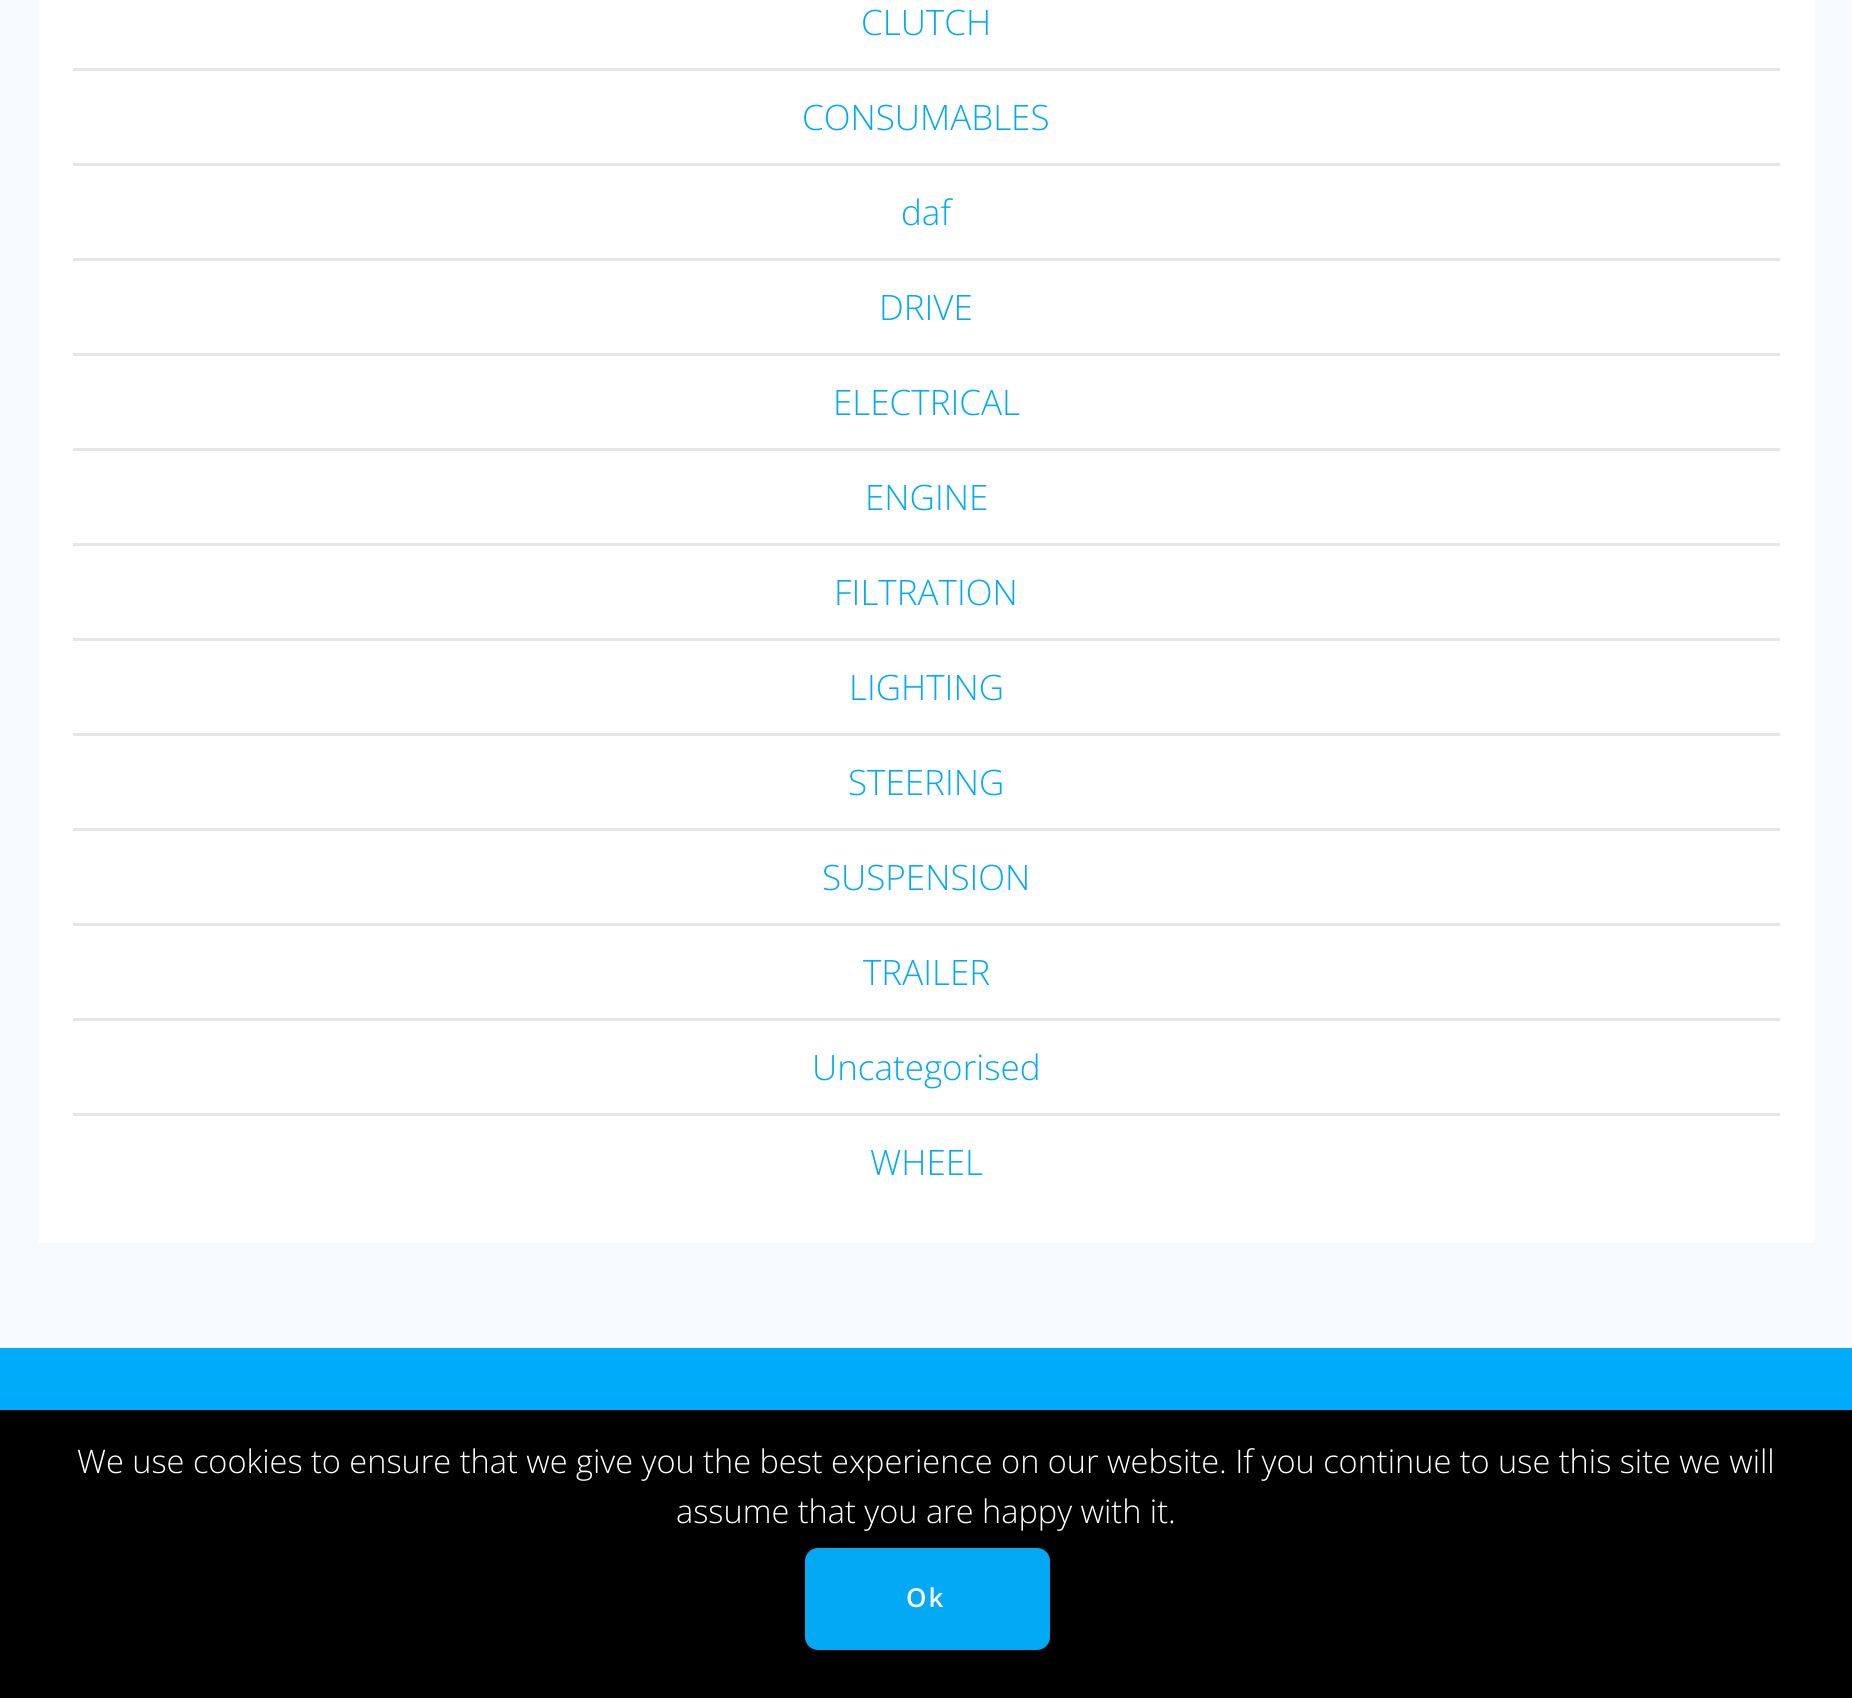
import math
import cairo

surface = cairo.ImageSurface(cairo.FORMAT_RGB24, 1852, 1698)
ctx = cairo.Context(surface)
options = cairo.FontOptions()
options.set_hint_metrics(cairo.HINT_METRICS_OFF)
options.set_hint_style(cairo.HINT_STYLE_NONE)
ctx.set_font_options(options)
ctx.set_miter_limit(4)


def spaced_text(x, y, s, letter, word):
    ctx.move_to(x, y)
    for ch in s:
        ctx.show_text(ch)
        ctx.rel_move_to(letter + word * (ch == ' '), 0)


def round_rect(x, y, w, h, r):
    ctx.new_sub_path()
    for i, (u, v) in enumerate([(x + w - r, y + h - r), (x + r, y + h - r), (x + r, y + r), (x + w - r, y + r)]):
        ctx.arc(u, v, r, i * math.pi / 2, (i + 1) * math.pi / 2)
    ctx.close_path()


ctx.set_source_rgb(0.961, 0.98, 0.992)
ctx.paint()
ctx.set_source_rgb(1, 1, 1)
ctx.rectangle(38, 0, 1777, 1243)
ctx.fill()
ctx.select_font_face("Open Sans Light")
ctx.set_font_size(35)
ctx.set_source_rgb(0.012, 0.663, 0.957)
ctx.move_to(861, 35)
ctx.show_text("CLUTCH")
ctx.set_source_rgb(0.902, 0.902, 0.902)
ctx.rectangle(73, 68, 1707, 3)
ctx.fill()
ctx.set_source_rgb(0.012, 0.663, 0.957)
ctx.move_to(802, 130)
ctx.show_text("CONSUMABLES")
ctx.set_source_rgb(0.902, 0.902, 0.902)
ctx.rectangle(73, 163, 1707, 3)
ctx.fill()
ctx.set_source_rgb(0.012, 0.663, 0.957)
ctx.move_to(901, 225)
ctx.show_text("daf")
ctx.set_source_rgb(0.902, 0.902, 0.902)
ctx.rectangle(73, 258, 1707, 3)
ctx.fill()
ctx.set_source_rgb(0.012, 0.663, 0.957)
ctx.move_to(879, 320)
ctx.show_text("DRIVE")
ctx.set_source_rgb(0.902, 0.902, 0.902)
ctx.rectangle(73, 353, 1707, 3)
ctx.fill()
ctx.set_source_rgb(0.012, 0.663, 0.957)
ctx.move_to(833, 415)
ctx.show_text("ELECTRICAL")
ctx.set_source_rgb(0.902, 0.902, 0.902)
ctx.rectangle(73, 448, 1707, 3)
ctx.fill()
ctx.set_source_rgb(0.012, 0.663, 0.957)
ctx.move_to(865, 510)
ctx.show_text("ENGINE")
ctx.set_source_rgb(0.902, 0.902, 0.902)
ctx.rectangle(73, 543, 1707, 3)
ctx.fill()
ctx.set_source_rgb(0.012, 0.663, 0.957)
ctx.move_to(834, 605)
ctx.show_text("FILTRATION")
ctx.set_source_rgb(0.902, 0.902, 0.902)
ctx.rectangle(73, 638, 1707, 3)
ctx.fill()
ctx.set_source_rgb(0.012, 0.663, 0.957)
ctx.move_to(849, 700)
ctx.show_text("LIGHTING")
ctx.set_source_rgb(0.902, 0.902, 0.902)
ctx.rectangle(73, 733, 1707, 3)
ctx.fill()
ctx.set_source_rgb(0.012, 0.663, 0.957)
ctx.move_to(848, 795)
ctx.show_text("STEERING")
ctx.set_source_rgb(0.902, 0.902, 0.902)
ctx.rectangle(73, 828, 1707, 3)
ctx.fill()
ctx.set_source_rgb(0.012, 0.663, 0.957)
ctx.move_to(822, 890)
ctx.show_text("SUSPENSION")
ctx.set_source_rgb(0.902, 0.902, 0.902)
ctx.rectangle(73, 923, 1707, 3)
ctx.fill()
ctx.set_source_rgb(0.012, 0.663, 0.957)
ctx.move_to(863, 985)
ctx.show_text("TRAILER")
ctx.set_source_rgb(0.902, 0.902, 0.902)
ctx.rectangle(73, 1018, 1707, 3)
ctx.fill()
ctx.set_source_rgb(0.012, 0.663, 0.957)
ctx.move_to(812, 1080)
ctx.show_text("Uncategorised")
ctx.set_source_rgb(0.902, 0.902, 0.902)
ctx.rectangle(73, 1113, 1707, 3)
ctx.fill()
ctx.set_source_rgb(0.012, 0.663, 0.957)
ctx.move_to(870, 1175)
ctx.show_text("WHEEL")
ctx.set_source_rgb(0, 0.671, 0.98)
ctx.rectangle(0, 1348, 1852, 62)
ctx.fill()
ctx.set_source_rgb(0, 0, 0)
ctx.rectangle(0, 1410, 1852, 288)
ctx.fill()
ctx.set_font_size(32.5)
ctx.set_source_rgb(1, 1, 1)
ctx.move_to(77, 1473)
ctx.show_text("We use cookies to ensure that we give you the best experience on our website. If you continue to use this site we will")
ctx.move_to(676, 1523)
ctx.show_text("assume that you are happy with it.")
ctx.set_source_rgb(0.012, 0.663, 0.957)
round_rect(807.5, 1550.5, 240, 97, 10.5)
ctx.fill_preserve()
ctx.set_line_width(5)
ctx.stroke()
ctx.select_font_face("Open Sans SemiBold")
ctx.set_font_size(26)
ctx.set_source_rgb(1, 1, 1)
spaced_text(906, 1607, "Ok", 2, 0)
surface.write_to_png("page.png")
